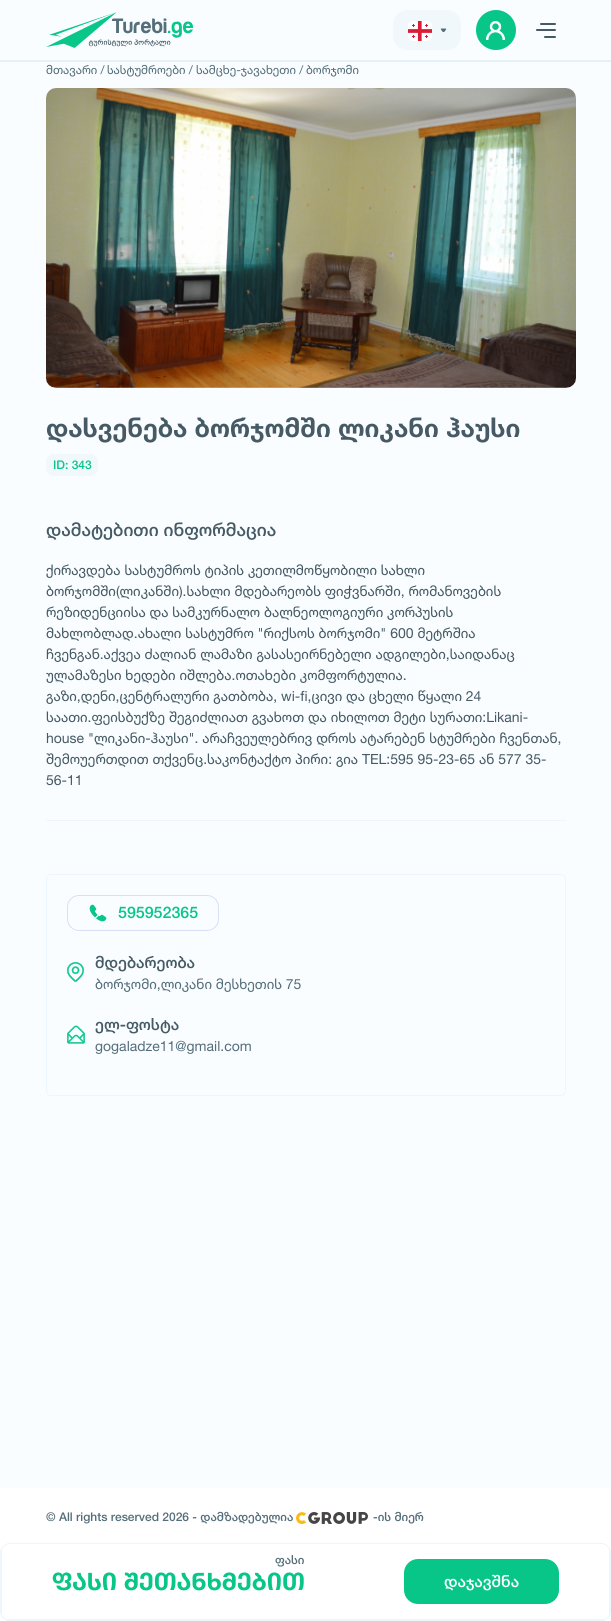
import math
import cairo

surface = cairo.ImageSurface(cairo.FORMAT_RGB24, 611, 1621)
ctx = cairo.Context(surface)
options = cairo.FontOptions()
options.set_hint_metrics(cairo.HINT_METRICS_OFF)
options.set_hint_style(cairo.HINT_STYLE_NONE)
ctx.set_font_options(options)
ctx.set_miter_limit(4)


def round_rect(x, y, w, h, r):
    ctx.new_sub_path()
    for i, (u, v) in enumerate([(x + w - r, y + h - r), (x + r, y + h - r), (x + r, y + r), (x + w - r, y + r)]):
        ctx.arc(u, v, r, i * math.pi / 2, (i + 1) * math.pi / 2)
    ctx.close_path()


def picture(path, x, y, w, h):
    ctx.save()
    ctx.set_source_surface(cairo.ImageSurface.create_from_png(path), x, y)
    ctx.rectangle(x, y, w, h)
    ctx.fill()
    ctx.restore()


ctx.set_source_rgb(1, 1, 1)
ctx.paint()
ctx.set_source_rgb(0.98, 0.992, 1)
ctx.rectangle(0, 0, 611, 1488)
ctx.fill()
ctx.set_source_rgb(0.898, 0.945, 0.98)
ctx.rectangle(0, 60, 611, 2)
ctx.fill()
picture("img1.png", 46, 12, 147, 36)
ctx.set_source_rgb(0.941, 0.969, 0.988)
round_rect(393, 10, 68, 40, 14)
ctx.fill()
picture("img2.png", 408, 21, 24, 20)
picture("img3.png", 440, 28, 7, 4)
ctx.set_source_rgb(0.035, 0.776, 0.533)
ctx.arc(496, 30, 20, 0, 2 * math.pi)
ctx.fill()
picture("img4.png", 486, 21, 19, 19)
ctx.set_source_rgb(0.271, 0.353, 0.392)
round_rect(540, 23, 16, 2, 1)
ctx.fill()
round_rect(536, 29, 20, 2, 1)
ctx.fill()
round_rect(544, 36, 12, 2, 1)
ctx.fill()
ctx.select_font_face("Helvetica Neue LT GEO")
ctx.set_font_size(12)
ctx.set_source_rgb(0.329, 0.431, 0.478)
ctx.move_to(46, 74)
ctx.show_text("მთავარი /")
ctx.move_to(107, 74)
ctx.show_text("სასტუმროები /")
ctx.move_to(196, 74)
ctx.show_text("სამცხე-ჯავახეთი /")
ctx.move_to(306, 74)
ctx.show_text("ბორჯომი")
picture("img5.png", 46, 88, 530, 300)
ctx.select_font_face("Helvetica Neue LT GEO", cairo.FONT_SLANT_NORMAL, cairo.FONT_WEIGHT_BOLD)
ctx.set_font_size(26)
ctx.set_source_rgb(0.271, 0.353, 0.392)
ctx.move_to(46, 437)
ctx.show_text("დასვენება ბორჯომში ლიკანი ჰაუსი")
ctx.set_source_rgb(0.941, 0.969, 0.988)
round_rect(46, 454, 52, 22, 8)
ctx.fill()
ctx.select_font_face("Helvetica Neue LT GEO Medium")
ctx.set_font_size(12)
ctx.set_source_rgb(0.035, 0.776, 0.533)
ctx.move_to(53, 469)
ctx.show_text("ID: 343")
ctx.set_source_rgb(0.922, 0.961, 0.988)
ctx.rectangle(46, 820, 520, 1)
ctx.fill()
ctx.set_font_size(18)
ctx.set_source_rgb(0.271, 0.353, 0.392)
ctx.move_to(46, 536)
ctx.show_text("დამატებითი ინფორმაცია")
ctx.select_font_face("Helvetica Neue LT GEO")
ctx.set_font_size(14)
ctx.move_to(46, 575)
ctx.show_text("ქირავდება სასტუმროს ტიპის კეთილმოწყობილი სახლი")
ctx.move_to(46, 596)
ctx.show_text("ბორჯომში(ლიკანში).სახლი მდებარეობს ფიჭვნარში, რომანოვების")
ctx.move_to(46, 617)
ctx.show_text("რეზიდენციისა და სამკურნალო ბალნეოლოგიური კორპუსის")
ctx.move_to(46, 638)
ctx.show_text("მახლობლად.ახალი სასტუმრო \"რიქსოს ბორჯომი\" 600 მეტრშია")
ctx.move_to(46, 659)
ctx.show_text("ჩვენგან.აქვეა ძალიან ლამაზი გასასეირნებელი ადგილები,საიდანაც")
ctx.move_to(46, 680)
ctx.show_text("ულამაზესი ხედები იშლება.ოთახები კომფორტულია.")
ctx.move_to(46, 701)
ctx.show_text("გაზი,დენი,ცენტრალური გათბობა, wi-fi,ცივი და ცხელი წყალი 24")
ctx.move_to(46, 722)
ctx.show_text("საათი.ფეისბუქზე შეგიძლიათ გვახოთ და იხილოთ მეტი სურათი:Likani-")
ctx.move_to(46, 743)
ctx.show_text("house \"ლიკანი-ჰაუსი\". არაჩვეულებრივ დროს ატარებენ სტუმრები ჩვენთან,")
ctx.move_to(46, 764)
ctx.show_text("შემოუერთდით თქვენც.საკონტაქტო პირი: გია TEL:595 95-23-65 ან 577 35-")
ctx.move_to(46, 785)
ctx.show_text("56-11")
round_rect(46.5, 874.5, 519, 221, 4.5)
ctx.set_source_rgb(0.922, 0.961, 0.988)
ctx.set_line_width(1)
ctx.stroke()
round_rect(67.5, 895.5, 151, 35, 11.5)
ctx.set_source_rgb(0.831, 0.882, 0.961)
ctx.stroke()
picture("img6.png", 89, 904, 18, 18)
ctx.select_font_face("Helvetica Neue LT GEO Medium")
ctx.set_font_size(16)
ctx.set_source_rgb(0.035, 0.776, 0.533)
ctx.move_to(118, 918)
ctx.show_text("595952365")
picture("img7.png", 67, 962, 17, 20)
ctx.set_source_rgb(0.271, 0.353, 0.392)
ctx.move_to(95, 968)
ctx.show_text("მდებარეობა")
ctx.select_font_face("Helvetica Neue LT GEO")
ctx.set_font_size(14)
ctx.set_source_rgb(0.329, 0.431, 0.478)
ctx.move_to(95, 989)
ctx.show_text("ბორჯომი,ლიკანი მესხეთის 75")
picture("img8.png", 67, 1025, 18, 19)
ctx.select_font_face("Helvetica Neue LT GEO Medium")
ctx.set_font_size(16)
ctx.set_source_rgb(0.271, 0.353, 0.392)
ctx.move_to(95, 1030)
ctx.show_text("ელ-ფოსტა")
ctx.select_font_face("Helvetica Neue LT GEO")
ctx.set_font_size(14)
ctx.set_source_rgb(0.329, 0.431, 0.478)
ctx.move_to(95, 1051)
ctx.show_text("gogaladze11@gmail.com")
round_rect(0.5, 1543.5, 610, 77, 9.5)
ctx.set_source_rgb(0.922, 0.961, 0.988)
ctx.stroke()
ctx.rectangle(609, 1548, 1, 68)
ctx.fill()
ctx.rectangle(5, 1619, 601, 1)
ctx.fill()
ctx.rectangle(1, 1548, 1, 68)
ctx.fill()
ctx.select_font_face("Helvetica Neue LT GEO Medium")
ctx.set_font_size(12)
ctx.set_source_rgb(0.329, 0.431, 0.478)
ctx.move_to(275, 1564)
ctx.show_text("ფასი")
ctx.select_font_face("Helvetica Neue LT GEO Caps", cairo.FONT_SLANT_NORMAL, cairo.FONT_WEIGHT_BOLD)
ctx.set_font_size(24)
ctx.set_source_rgb(0.035, 0.776, 0.533)
ctx.move_to(52, 1590)
ctx.show_text("ფასი შეთანხმებით")
round_rect(404, 1559, 155, 45, 14)
ctx.fill()
ctx.select_font_face("Helvetica Neue LT GEO Medium")
ctx.set_font_size(16)
ctx.set_source_rgb(1, 1, 1)
ctx.move_to(444, 1587)
ctx.show_text("დაჯავშნა")
ctx.set_font_size(12)
ctx.set_source_rgb(0.329, 0.431, 0.478)
ctx.move_to(46, 1521)
ctx.show_text("© All rights reserved 2026 - დამზადებულია")
picture("img9.png", 296, 1512, 72, 12)
ctx.move_to(373, 1521)
ctx.show_text("-ის მიერ")
surface.write_to_png("page.png")
